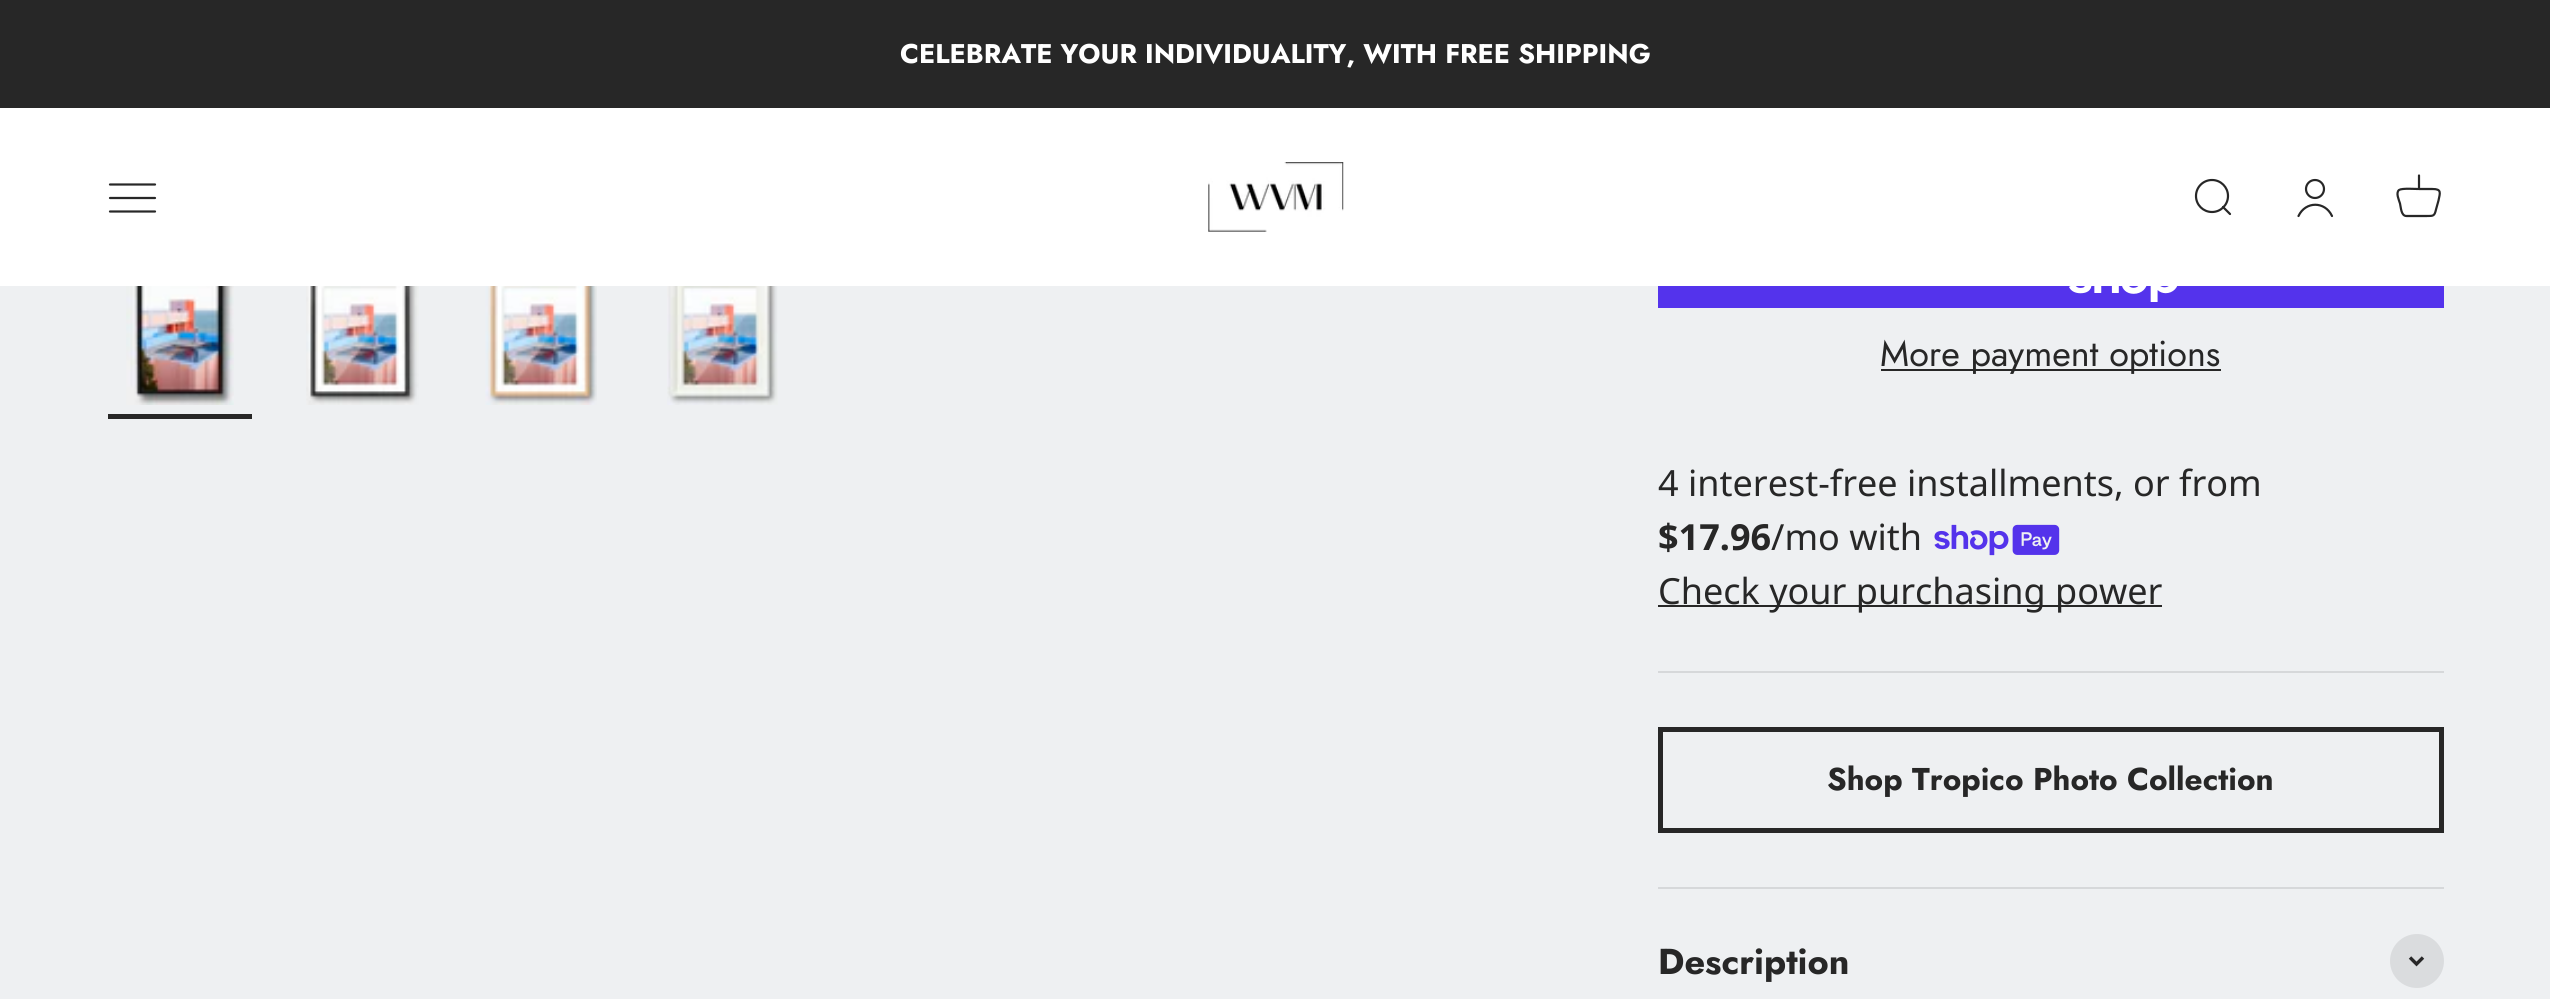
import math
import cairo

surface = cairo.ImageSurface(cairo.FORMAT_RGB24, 2550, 999)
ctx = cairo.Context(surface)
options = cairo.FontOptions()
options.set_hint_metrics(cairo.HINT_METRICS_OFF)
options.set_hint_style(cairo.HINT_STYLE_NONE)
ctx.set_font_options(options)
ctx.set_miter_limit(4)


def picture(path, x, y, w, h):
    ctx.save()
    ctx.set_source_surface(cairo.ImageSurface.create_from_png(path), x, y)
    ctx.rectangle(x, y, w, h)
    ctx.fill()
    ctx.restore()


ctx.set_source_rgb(0.933, 0.941, 0.949)
ctx.paint()
ctx.set_source_rgb(0.153, 0.153, 0.153)
ctx.rectangle(0, 0, 2550, 108)
ctx.fill()
ctx.select_font_face("Jost", cairo.FONT_SLANT_NORMAL, cairo.FONT_WEIGHT_BOLD)
ctx.set_font_size(27)
ctx.set_source_rgb(1, 1, 1)
ctx.move_to(900, 63)
ctx.show_text("CELEBRATE YOUR INDIVIDUALITY, WITH FREE SHIPPING")
ctx.rectangle(0, 108, 2550, 178)
ctx.fill()
ctx.new_path()
ctx.move_to(110, 184.5)
ctx.line_to(155, 184.5)
ctx.move_to(110, 198)
ctx.line_to(155, 198)
ctx.move_to(110, 211.5)
ctx.line_to(155, 211.5)
ctx.set_source_rgb(0.153, 0.153, 0.153)
ctx.set_line_width(2.2)
ctx.set_line_cap(cairo.LINE_CAP_ROUND)
ctx.stroke()
picture("img1.png", 1208, 162, 136, 70)
ctx.arc(2212, 196, 16, 0, 2 * math.pi)
ctx.set_line_cap(cairo.LINE_CAP_BUTT)
ctx.stroke()
ctx.new_path()
ctx.move_to(2223, 207)
ctx.line_to(2230, 214)
ctx.set_line_cap(cairo.LINE_CAP_ROUND)
ctx.set_line_join(cairo.LINE_JOIN_ROUND)
ctx.stroke()
ctx.arc(2315, 189, 9, 0, 2 * math.pi)
ctx.set_line_cap(cairo.LINE_CAP_BUTT)
ctx.set_line_join(cairo.LINE_JOIN_MITER)
ctx.stroke()
ctx.new_path()
ctx.move_to(2298.5, 216)
ctx.curve_to(2305.5, 201, 2325, 201, 2332, 216)
ctx.set_line_cap(cairo.LINE_CAP_ROUND)
ctx.stroke()
ctx.new_path()
ctx.move_to(2419, 189)
ctx.curve_to(2415, 189, 2402, 188, 2399, 190)
ctx.curve_to(2395.5, 193, 2399, 200, 2400, 203.5)
ctx.curve_to(2401, 207.5, 2401, 216, 2406.5, 216)
ctx.line_to(2427, 216)
ctx.curve_to(2433.5, 216, 2434.5, 216, 2436, 209.5)
ctx.line_to(2438.5, 200.5)
ctx.curve_to(2440, 193, 2442, 189, 2432.5, 189)
ctx.close_path()
ctx.move_to(2419, 189)
ctx.line_to(2419, 175.5)
ctx.set_line_join(cairo.LINE_JOIN_ROUND)
ctx.stroke()
picture("img2.png", 126, 286, 108, 119)
ctx.rectangle(108, 414, 144, 5)
ctx.fill()
picture("img3.png", 306, 286, 113, 119)
picture("img4.png", 485, 286, 112, 119)
picture("img5.png", 667, 286, 111, 119)
ctx.set_source_rgb(0.329, 0.2, 0.922)
ctx.rectangle(1658, 286, 786, 22)
ctx.fill()
picture("img6.png", 2069, 286, 109, 16)
ctx.set_source_rgb(0.153, 0.153, 0.153)
ctx.rectangle(1881, 369, 340, 2)
ctx.fill()
ctx.select_font_face("Jost")
ctx.set_font_size(36)
ctx.move_to(1880, 366)
ctx.show_text("More payment options")
ctx.select_font_face("Noto Sans")
ctx.move_to(1658, 496)
ctx.show_text("4 interest-free installments, or from")
ctx.select_font_face("Noto Sans", cairo.FONT_SLANT_NORMAL, cairo.FONT_WEIGHT_BOLD)
ctx.move_to(1658, 550)
ctx.show_text("$17.96")
ctx.select_font_face("Noto Sans")
ctx.move_to(1771, 550)
ctx.show_text("/mo with")
picture("img7.png", 1934, 524, 126, 32)
ctx.rectangle(1658, 605, 504, 2)
ctx.fill()
ctx.move_to(1658, 604)
ctx.show_text("Check your purchasing power")
ctx.set_source_rgb(0.839, 0.847, 0.855)
ctx.rectangle(1658, 671, 786, 2)
ctx.fill()
ctx.rectangle(1660.5, 729.5, 781, 101)
ctx.set_source_rgb(0.153, 0.153, 0.153)
ctx.set_line_width(5)
ctx.set_line_cap(cairo.LINE_CAP_BUTT)
ctx.set_line_join(cairo.LINE_JOIN_MITER)
ctx.stroke()
ctx.select_font_face("Jost", cairo.FONT_SLANT_NORMAL, cairo.FONT_WEIGHT_BOLD)
ctx.set_font_size(31.5)
ctx.move_to(1827, 790)
ctx.show_text("Shop Tropico Photo Collection")
ctx.set_source_rgb(0.839, 0.847, 0.855)
ctx.rectangle(1658, 887, 786, 2)
ctx.fill()
ctx.set_font_size(36)
ctx.set_source_rgb(0.153, 0.153, 0.153)
ctx.move_to(1658, 974)
ctx.show_text("Description")
ctx.set_source_rgb(0.855, 0.863, 0.871)
ctx.new_path()
ctx.arc(2417, 961, 27, 0, 2 * math.pi)
ctx.fill()
ctx.new_path()
ctx.move_to(2410, 957.5)
ctx.line_to(2416.5, 964)
ctx.line_to(2423, 957.5)
ctx.set_source_rgb(0.153, 0.153, 0.153)
ctx.set_line_width(3.4)
ctx.stroke()
surface.write_to_png("page.png")
